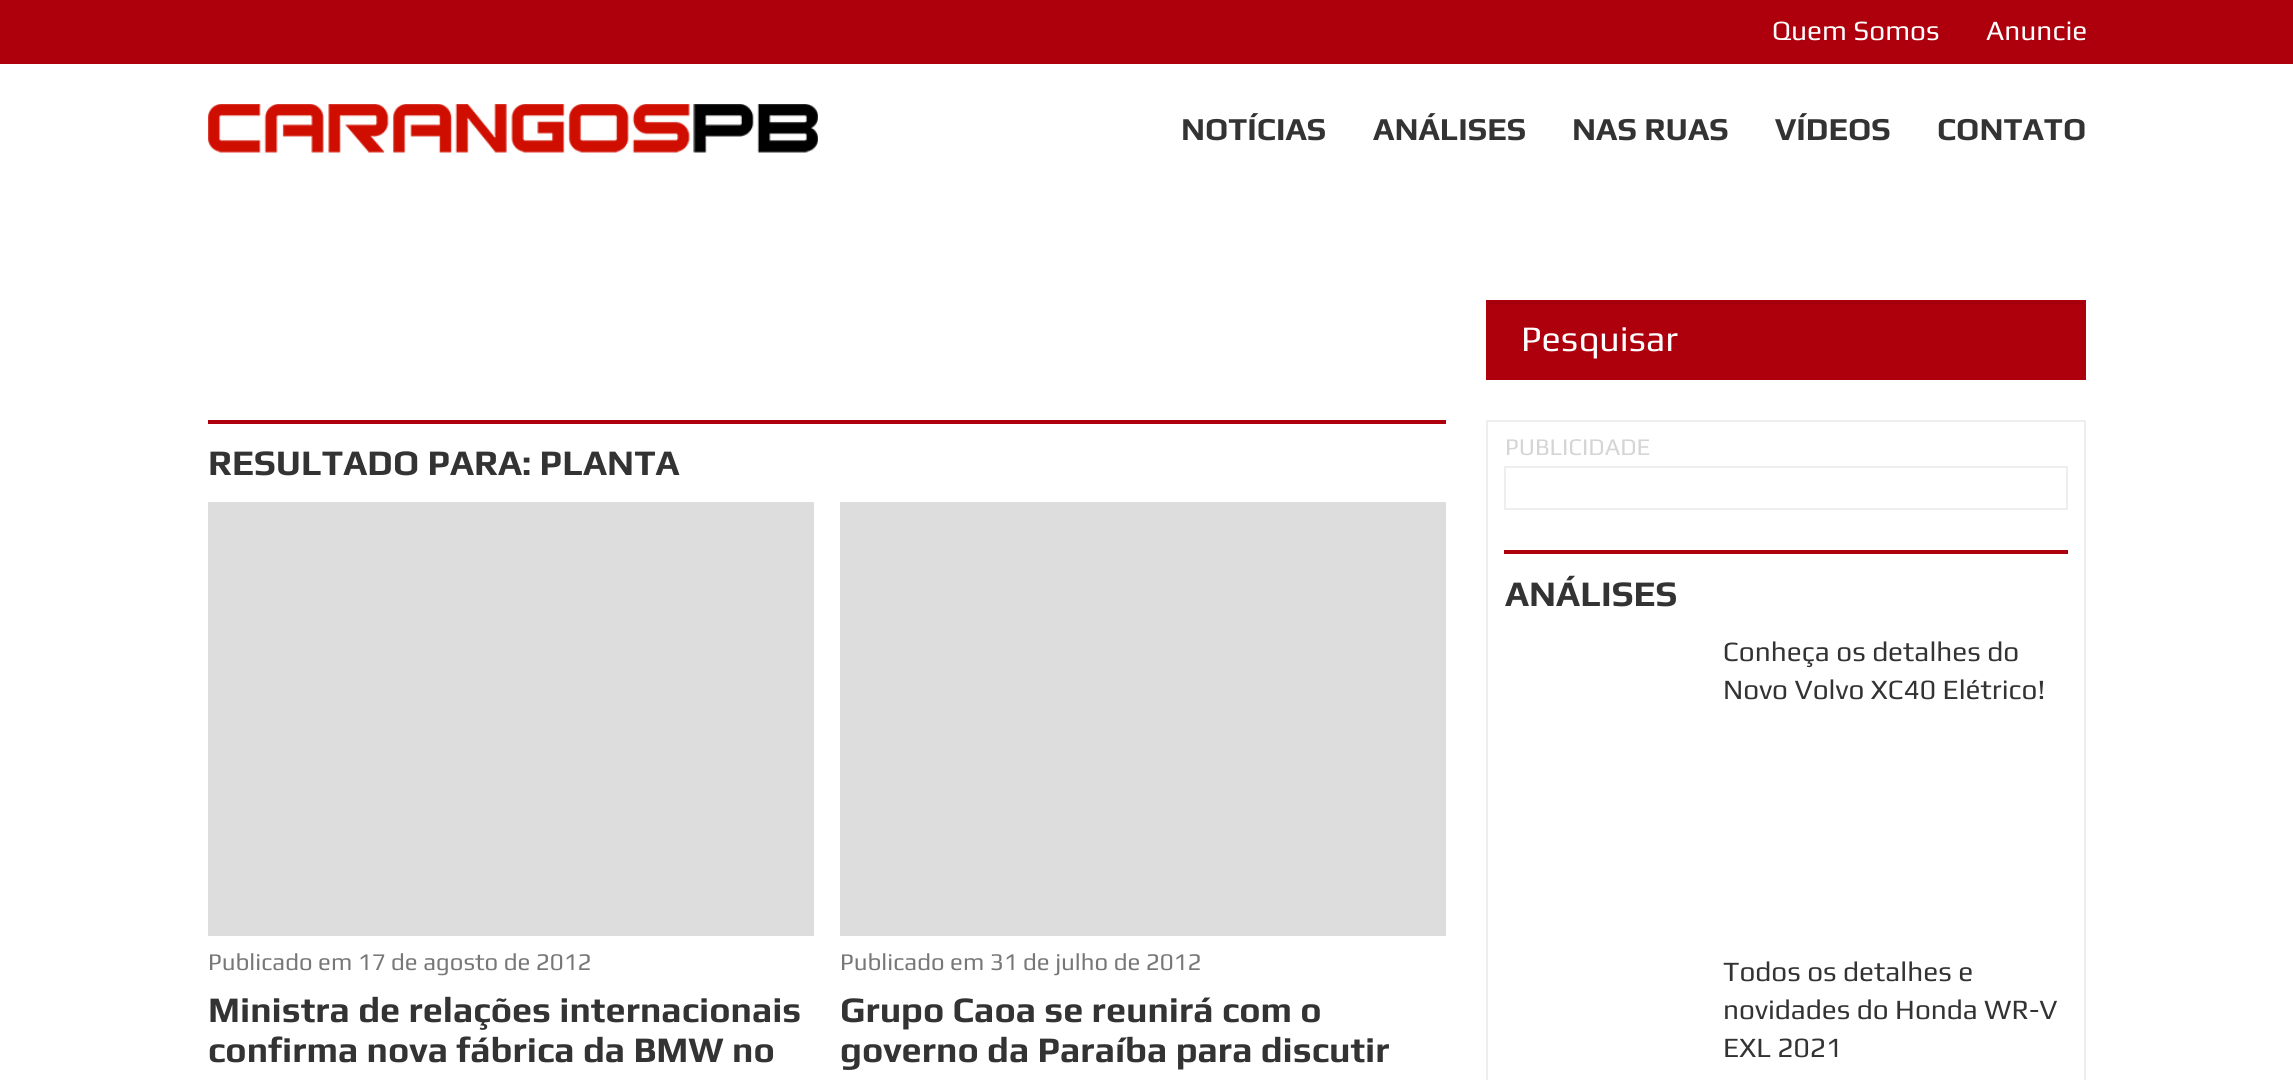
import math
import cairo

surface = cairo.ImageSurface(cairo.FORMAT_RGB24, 2293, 1080)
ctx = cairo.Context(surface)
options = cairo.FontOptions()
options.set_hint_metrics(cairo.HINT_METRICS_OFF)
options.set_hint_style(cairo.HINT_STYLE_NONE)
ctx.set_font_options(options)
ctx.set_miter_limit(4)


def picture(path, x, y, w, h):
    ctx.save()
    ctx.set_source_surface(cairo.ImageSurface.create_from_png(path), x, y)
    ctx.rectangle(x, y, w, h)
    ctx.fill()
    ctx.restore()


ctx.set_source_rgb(1, 1, 1)
ctx.paint()
ctx.set_source_rgb(0.678, 0, 0.047)
ctx.rectangle(0, 0, 2293, 64)
ctx.fill()
ctx.select_font_face("Play")
ctx.set_font_size(28)
ctx.set_source_rgb(1, 1, 1)
ctx.move_to(1772, 40)
ctx.show_text("Quem Somos")
ctx.move_to(1986, 40)
ctx.show_text("Anuncie")
picture("img1.png", 208, 104, 610, 49)
ctx.select_font_face("Play", cairo.FONT_SLANT_NORMAL, cairo.FONT_WEIGHT_BOLD)
ctx.set_font_size(32)
ctx.set_source_rgb(0.2, 0.2, 0.2)
ctx.move_to(1181, 140)
ctx.show_text("NOTÍCIAS")
ctx.move_to(1373, 140)
ctx.show_text("ANÁLISES")
ctx.move_to(1572, 140)
ctx.show_text("NAS RUAS")
ctx.move_to(1775, 140)
ctx.show_text("VÍDEOS")
ctx.move_to(1937, 140)
ctx.show_text("CONTATO")
ctx.set_source_rgb(0.678, 0, 0.047)
ctx.rectangle(1486, 300, 600, 80)
ctx.fill()
ctx.set_source_rgb(0.627, 0, 0.043)
ctx.rectangle(1488, 302, 596, 2)
ctx.fill()
ctx.select_font_face("Play")
ctx.set_font_size(36)
ctx.set_source_rgb(1, 1, 1)
ctx.move_to(1521, 351)
ctx.show_text("Pesquisar")
ctx.set_source_rgb(0.678, 0, 0.047)
ctx.rectangle(208, 420, 1238, 4)
ctx.fill()
ctx.select_font_face("Play", cairo.FONT_SLANT_NORMAL, cairo.FONT_WEIGHT_BOLD)
ctx.set_source_rgb(0.2, 0.2, 0.2)
ctx.move_to(208, 475)
ctx.show_text("RESULTADO PARA: PLANTA")
ctx.set_source_rgb(0.867, 0.867, 0.867)
ctx.rectangle(208, 502, 606, 434)
ctx.fill()
ctx.select_font_face("Play")
ctx.set_font_size(24)
ctx.set_source_rgb(0.467, 0.467, 0.467)
ctx.move_to(208, 970)
ctx.show_text("Publicado em 17 de agosto de 2012")
ctx.select_font_face("Play", cairo.FONT_SLANT_NORMAL, cairo.FONT_WEIGHT_BOLD)
ctx.set_font_size(36)
ctx.set_source_rgb(0.2, 0.2, 0.2)
ctx.move_to(208, 1022)
ctx.show_text("Ministra de relações internacionais")
ctx.move_to(208, 1062)
ctx.show_text("confirma nova fábrica da BMW no")
ctx.set_source_rgb(0.867, 0.867, 0.867)
ctx.rectangle(840, 502, 606, 434)
ctx.fill()
ctx.select_font_face("Play")
ctx.set_font_size(24)
ctx.set_source_rgb(0.467, 0.467, 0.467)
ctx.move_to(840, 970)
ctx.show_text("Publicado em 31 de julho de 2012")
ctx.select_font_face("Play", cairo.FONT_SLANT_NORMAL, cairo.FONT_WEIGHT_BOLD)
ctx.set_font_size(36)
ctx.set_source_rgb(0.2, 0.2, 0.2)
ctx.move_to(840, 1022)
ctx.show_text("Grupo Caoa se reunirá com o")
ctx.move_to(840, 1062)
ctx.show_text("governo da Paraíba para discutir")
ctx.rectangle(1487, 421, 598, 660)
ctx.set_source_rgb(0.933, 0.933, 0.933)
ctx.stroke()
ctx.select_font_face("Play")
ctx.set_font_size(24)
ctx.set_source_rgb(0.835, 0.835, 0.835)
ctx.move_to(1505, 455)
ctx.show_text("PUBLICIDADE")
ctx.rectangle(1505, 467, 562, 42)
ctx.set_source_rgb(0.933, 0.933, 0.933)
ctx.stroke()
ctx.set_source_rgb(0.678, 0, 0.047)
ctx.rectangle(1504, 550, 564, 4)
ctx.fill()
ctx.select_font_face("Play", cairo.FONT_SLANT_NORMAL, cairo.FONT_WEIGHT_BOLD)
ctx.set_font_size(36)
ctx.set_source_rgb(0.2, 0.2, 0.2)
ctx.move_to(1505, 606)
ctx.show_text("ANÁLISES")
ctx.select_font_face("Play")
ctx.set_font_size(28)
ctx.move_to(1723, 661)
ctx.show_text("Conheça os detalhes do")
ctx.move_to(1723, 699)
ctx.show_text("Novo Volvo XC40 Elétrico!")
ctx.move_to(1723, 981)
ctx.show_text("Todos os detalhes e")
ctx.move_to(1723, 1019)
ctx.show_text("novidades do Honda WR-V")
ctx.move_to(1723, 1057)
ctx.show_text("EXL 2021")
surface.write_to_png("page.png")
